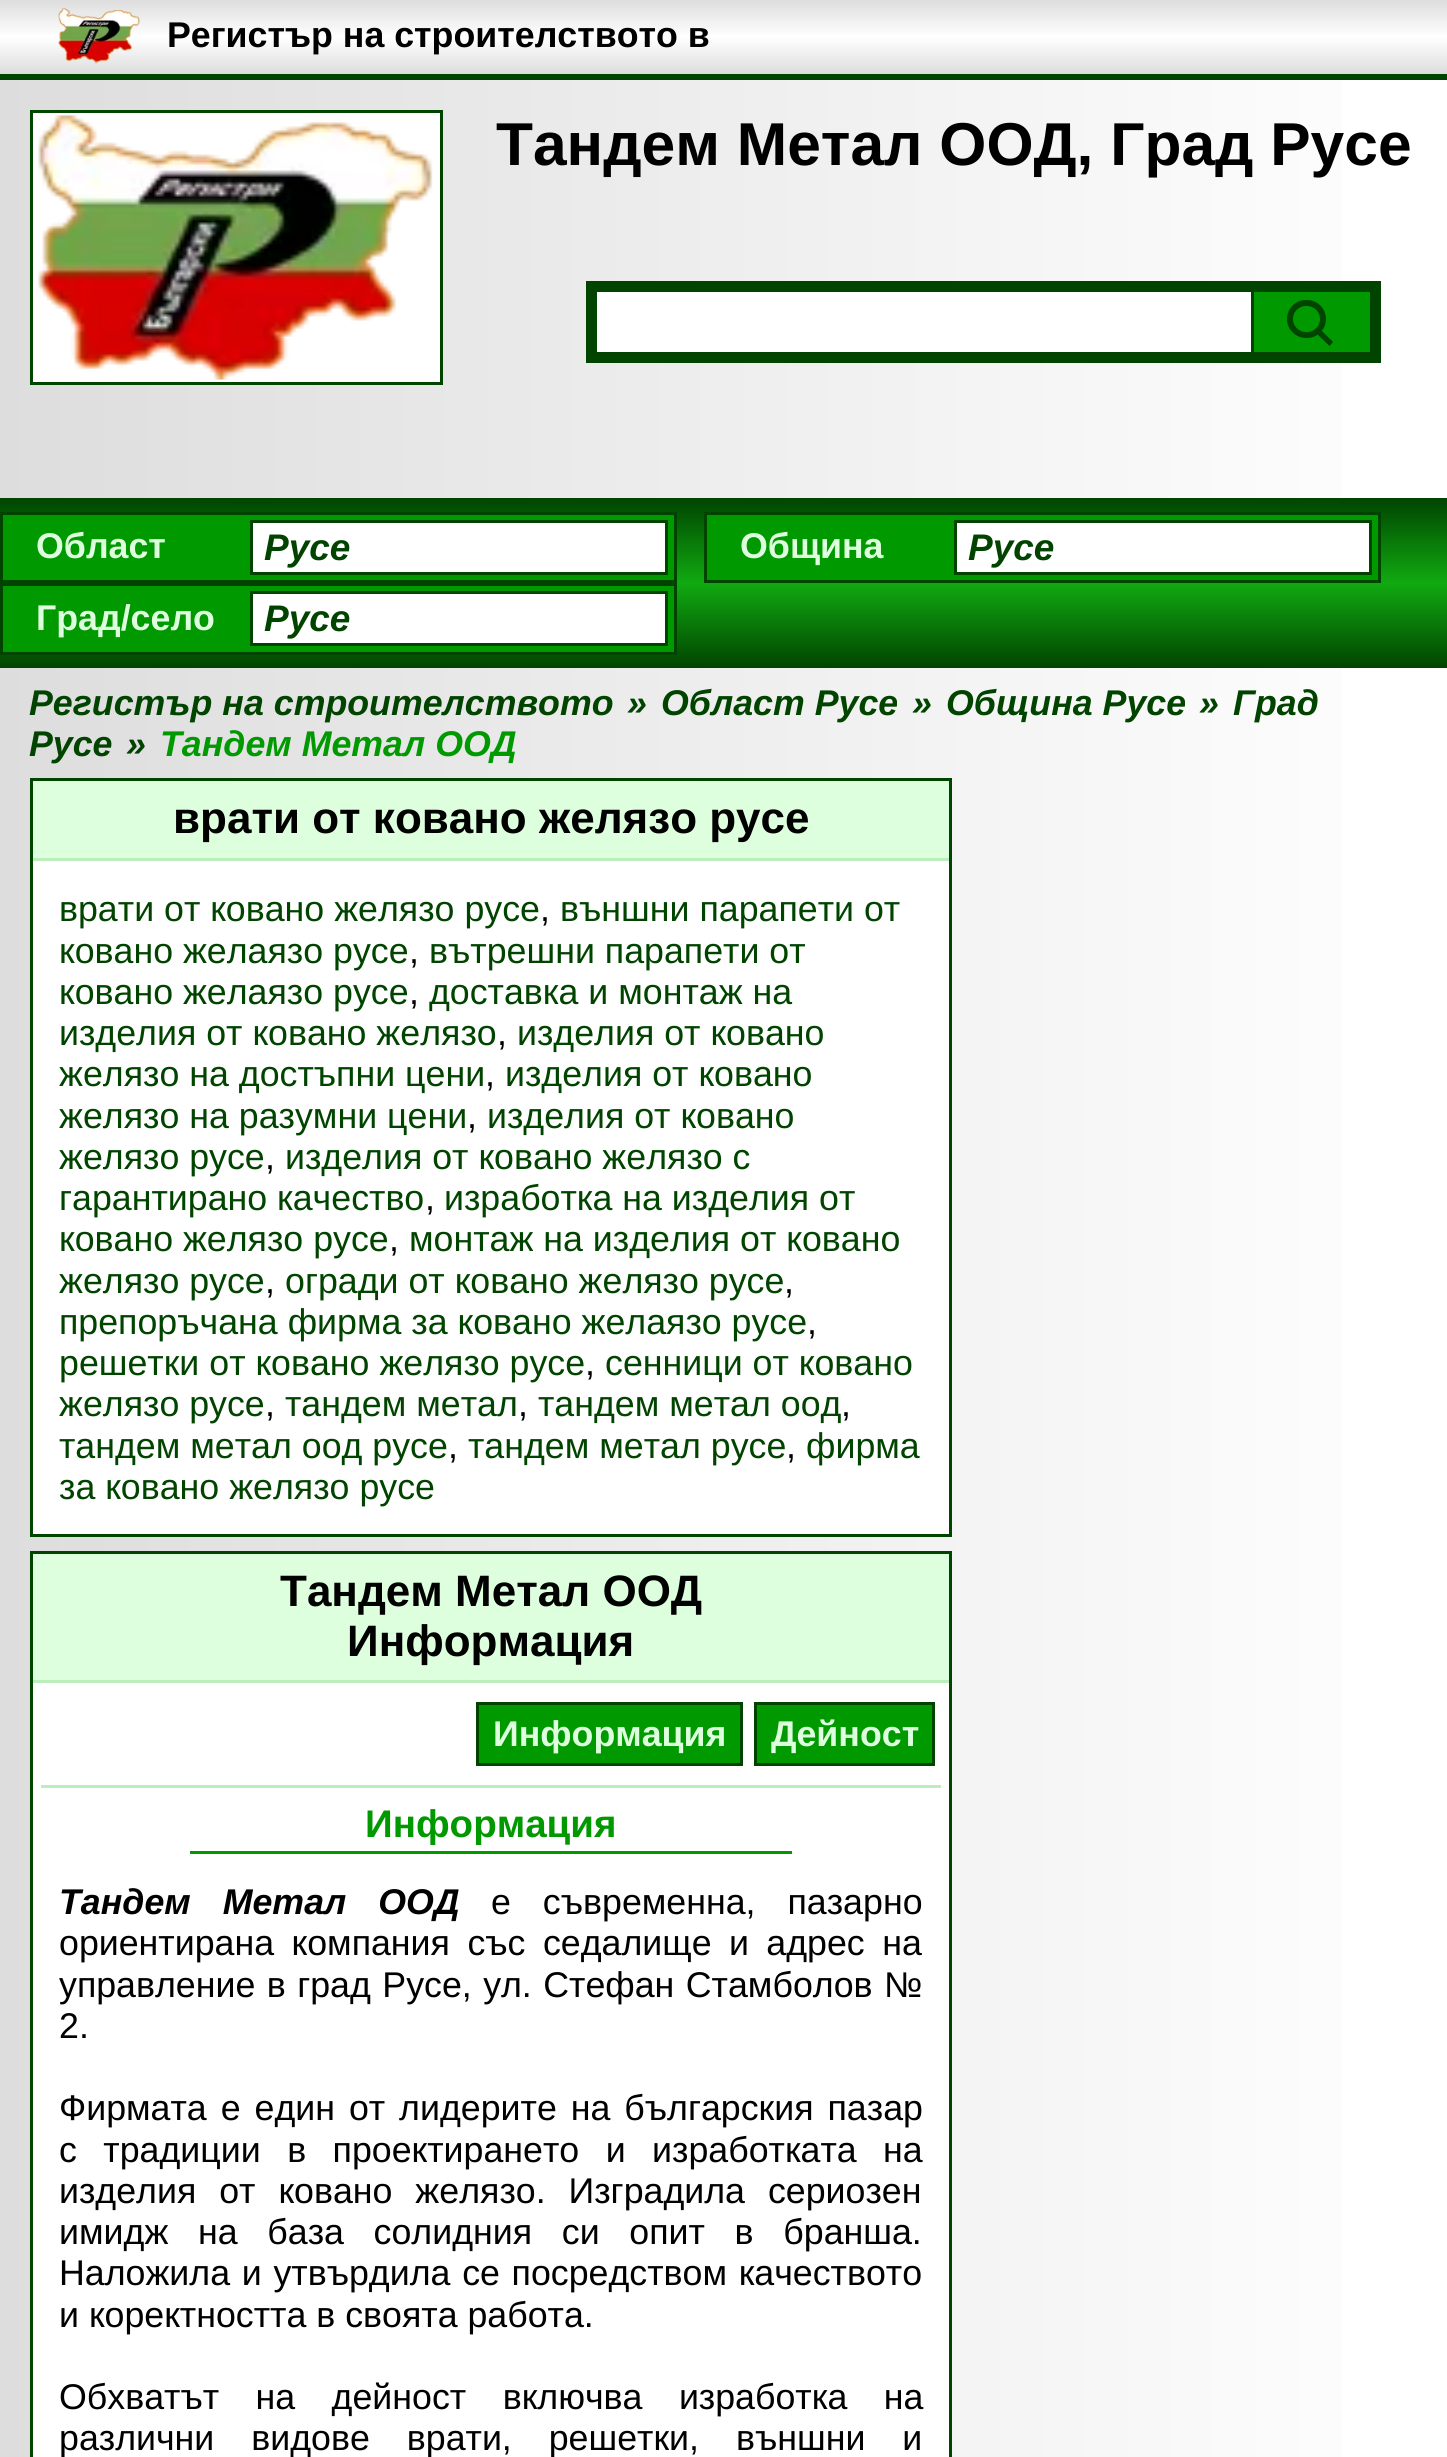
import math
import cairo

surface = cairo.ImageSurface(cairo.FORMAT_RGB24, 1447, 2457)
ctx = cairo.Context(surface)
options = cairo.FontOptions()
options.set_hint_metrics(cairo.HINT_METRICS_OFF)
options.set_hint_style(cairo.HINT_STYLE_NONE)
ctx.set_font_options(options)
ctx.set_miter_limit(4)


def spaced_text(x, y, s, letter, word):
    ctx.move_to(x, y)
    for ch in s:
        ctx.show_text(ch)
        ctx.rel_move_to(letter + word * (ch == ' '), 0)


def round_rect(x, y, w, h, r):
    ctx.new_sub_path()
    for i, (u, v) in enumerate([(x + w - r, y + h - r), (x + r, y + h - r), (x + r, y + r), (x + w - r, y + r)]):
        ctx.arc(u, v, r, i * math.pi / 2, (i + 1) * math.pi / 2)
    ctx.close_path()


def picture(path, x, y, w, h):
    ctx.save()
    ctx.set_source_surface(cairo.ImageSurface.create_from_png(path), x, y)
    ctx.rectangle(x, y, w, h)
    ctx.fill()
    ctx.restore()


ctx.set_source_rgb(1, 1, 1)
ctx.paint()
gradient = cairo.LinearGradient(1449, 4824, 0, 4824)
gradient.add_color_stop_rgba(0, 1, 1, 1, 1)
gradient.add_color_stop_rgba(1, 0.867, 0.867, 0.867, 1)
ctx.set_source(gradient)
ctx.rectangle(0, 80, 1342, 2377)
ctx.fill()
gradient = cairo.LinearGradient(725, 74, 725, 0)
gradient.add_color_stop_rgba(0, 0.867, 0.867, 0.867, 1)
gradient.add_color_stop_rgba(0.5, 1, 1, 1, 1)
gradient.add_color_stop_rgba(1, 0.867, 0.867, 0.867, 1)
ctx.set_source(gradient)
ctx.rectangle(0, 0, 1447, 74)
ctx.fill()
ctx.set_source_rgb(0, 0.267, 0)
ctx.rectangle(0, 74, 1447, 6)
ctx.fill()
picture("img1.png", 58, 8, 82, 56)
ctx.select_font_face("Liberation Sans", cairo.FONT_SLANT_NORMAL, cairo.FONT_WEIGHT_BOLD)
ctx.set_font_size(35.75)
ctx.set_source_rgb(0, 0, 0)
ctx.move_to(167, 47)
ctx.show_text("Регистър на строителството в")
ctx.set_source_rgb(1, 1, 1)
ctx.rectangle(31.5, 111.5, 410, 272)
ctx.fill_preserve()
ctx.set_source_rgb(0, 0.267, 0)
ctx.set_line_width(3)
ctx.stroke()
picture("img2.png", 38, 115, 395, 265)
ctx.set_font_size(60.5)
ctx.set_source_rgb(0, 0, 0)
ctx.move_to(496, 165)
ctx.show_text("Тандем Метал ООД, Град Русе")
ctx.set_source_rgb(0, 0.267, 0)
ctx.rectangle(586, 281, 795, 82)
ctx.fill()
ctx.set_source_rgb(1, 1, 1)
ctx.rectangle(597, 292, 654, 60)
ctx.fill()
ctx.set_source_rgb(0, 0.6, 0)
ctx.rectangle(1254, 292, 116, 60)
ctx.fill()
round_rect(1290, 303, 33, 32, 16)
ctx.set_source_rgb(0, 0.267, 0)
ctx.set_line_width(6)
ctx.stroke()
ctx.new_path()
ctx.move_to(1321.5, 330.5)
ctx.line_to(1333, 342)
ctx.line_to(1329.5, 346)
ctx.line_to(1317.5, 334.5)
ctx.close_path()
ctx.fill()
gradient = cairo.LinearGradient(725, 668, 725, 498)
gradient.add_color_stop_rgba(0, 0, 0.267, 0, 1)
gradient.add_color_stop_rgba(0.5, 0.067, 0.667, 0.067, 1)
gradient.add_color_stop_rgba(1, 0, 0.267, 0, 1)
ctx.set_source(gradient)
ctx.rectangle(0, 498, 1447, 170)
ctx.fill()
ctx.set_source_rgb(0, 0.6, 0)
ctx.rectangle(1.5, 513.5, 674, 68)
ctx.fill_preserve()
ctx.set_source_rgb(0, 0.267, 0)
ctx.set_line_width(3)
ctx.stroke()
ctx.set_font_size(35.75)
ctx.set_source_rgb(0.867, 1, 0.867)
ctx.move_to(36, 558)
ctx.show_text("Област")
ctx.set_source_rgb(1, 1, 1)
ctx.rectangle(251.5, 521.5, 415, 52)
ctx.fill_preserve()
ctx.set_source_rgb(0, 0.267, 0)
ctx.stroke()
ctx.select_font_face("Liberation Sans", cairo.FONT_SLANT_ITALIC, cairo.FONT_WEIGHT_BOLD)
ctx.set_font_size(37)
ctx.move_to(264, 560)
ctx.show_text("Русе")
ctx.set_source_rgb(0, 0.6, 0)
ctx.rectangle(705.5, 513.5, 674, 68)
ctx.fill_preserve()
ctx.set_source_rgb(0, 0.267, 0)
ctx.stroke()
ctx.select_font_face("Liberation Sans", cairo.FONT_SLANT_NORMAL, cairo.FONT_WEIGHT_BOLD)
ctx.set_font_size(35.75)
ctx.set_source_rgb(0.867, 1, 0.867)
ctx.move_to(740, 558)
ctx.show_text("Община")
ctx.set_source_rgb(1, 1, 1)
ctx.rectangle(955.5, 521.5, 415, 52)
ctx.fill_preserve()
ctx.set_source_rgb(0, 0.267, 0)
ctx.stroke()
ctx.select_font_face("Liberation Sans", cairo.FONT_SLANT_ITALIC, cairo.FONT_WEIGHT_BOLD)
ctx.set_font_size(37)
ctx.move_to(968, 560)
ctx.show_text("Русе")
ctx.set_source_rgb(0, 0.6, 0)
ctx.rectangle(1.5, 584.5, 674, 69)
ctx.fill_preserve()
ctx.set_source_rgb(0, 0.267, 0)
ctx.stroke()
ctx.select_font_face("Liberation Sans", cairo.FONT_SLANT_NORMAL, cairo.FONT_WEIGHT_BOLD)
ctx.set_font_size(35.75)
ctx.set_source_rgb(0.867, 1, 0.867)
ctx.move_to(36, 630)
ctx.show_text("Град/село")
ctx.set_source_rgb(1, 1, 1)
ctx.rectangle(251.5, 592.5, 415, 52)
ctx.fill_preserve()
ctx.set_source_rgb(0, 0.267, 0)
ctx.stroke()
ctx.select_font_face("Liberation Sans", cairo.FONT_SLANT_ITALIC, cairo.FONT_WEIGHT_BOLD)
ctx.set_font_size(37)
ctx.move_to(264, 631)
ctx.show_text("Русе")
ctx.set_font_size(35.75)
ctx.move_to(29, 715)
ctx.show_text("Регистър на строителството")
ctx.move_to(627, 715)
ctx.show_text("»")
ctx.move_to(661, 715)
ctx.show_text("Област Русе")
ctx.move_to(912, 715)
ctx.show_text("»")
ctx.move_to(946, 715)
ctx.show_text("Община Русе")
ctx.move_to(1199, 715)
ctx.show_text("»")
ctx.move_to(1233, 715)
ctx.show_text("Град")
ctx.move_to(29, 756)
ctx.show_text("Русе")
ctx.move_to(126, 756)
ctx.show_text("»")
ctx.set_source_rgb(0, 0.6, 0)
ctx.move_to(160, 756)
ctx.show_text("Тандем Метал ООД")
ctx.set_source_rgb(1, 1, 1)
ctx.rectangle(33, 861, 916, 673)
ctx.fill()
ctx.rectangle(31.5, 779.5, 919, 756)
ctx.set_source_rgb(0, 0.267, 0)
ctx.stroke()
ctx.set_source_rgb(0.867, 1, 0.867)
ctx.rectangle(33, 781, 916, 77)
ctx.fill()
ctx.set_source_rgb(0.733, 0.933, 0.733)
ctx.rectangle(33, 858, 916, 3)
ctx.fill()
ctx.select_font_face("Liberation Sans", cairo.FONT_SLANT_NORMAL, cairo.FONT_WEIGHT_BOLD)
ctx.set_font_size(44)
ctx.set_source_rgb(0, 0, 0)
ctx.move_to(173, 833)
ctx.show_text("врати от ковано желязо русе")
ctx.select_font_face("Liberation Sans")
ctx.set_font_size(35.75)
ctx.set_source_rgb(0, 0.267, 0)
ctx.move_to(59, 921)
ctx.show_text("врати от ковано желязо русе")
ctx.set_source_rgb(0, 0, 0)
ctx.move_to(540, 921)
ctx.show_text(",")
ctx.set_source_rgb(0, 0.267, 0)
ctx.move_to(560, 921)
ctx.show_text("външни парапети от")
ctx.move_to(59, 963)
ctx.show_text("ковано желаязо русе")
ctx.set_source_rgb(0, 0, 0)
ctx.move_to(409, 963)
ctx.show_text(",")
ctx.set_source_rgb(0, 0.267, 0)
ctx.move_to(429, 963)
ctx.show_text("вътрешни парапети от")
ctx.move_to(59, 1004)
ctx.show_text("ковано желаязо русе")
ctx.set_source_rgb(0, 0, 0)
ctx.move_to(409, 1004)
ctx.show_text(",")
ctx.set_source_rgb(0, 0.267, 0)
ctx.move_to(429, 1004)
ctx.show_text("доставка и монтаж на")
ctx.move_to(59, 1045)
ctx.show_text("изделия от ковано желязо")
ctx.set_source_rgb(0, 0, 0)
ctx.move_to(497, 1045)
ctx.show_text(",")
ctx.set_source_rgb(0, 0.267, 0)
ctx.move_to(517, 1045)
ctx.show_text("изделия от ковано")
ctx.move_to(59, 1086)
ctx.show_text("желязо на достъпни цени")
ctx.set_source_rgb(0, 0, 0)
ctx.move_to(485, 1086)
ctx.show_text(",")
ctx.set_source_rgb(0, 0.267, 0)
ctx.move_to(505, 1086)
ctx.show_text("изделия от ковано")
ctx.move_to(59, 1128)
ctx.show_text("желязо на разумни цени")
ctx.set_source_rgb(0, 0, 0)
ctx.move_to(467, 1128)
ctx.show_text(",")
ctx.set_source_rgb(0, 0.267, 0)
ctx.move_to(487, 1128)
ctx.show_text("изделия от ковано")
ctx.move_to(59, 1169)
ctx.show_text("желязо русе")
ctx.set_source_rgb(0, 0, 0)
ctx.move_to(265, 1169)
ctx.show_text(",")
ctx.set_source_rgb(0, 0.267, 0)
ctx.move_to(285, 1169)
ctx.show_text("изделия от ковано желязо с")
ctx.move_to(59, 1210)
ctx.show_text("гарантирано качество")
ctx.set_source_rgb(0, 0, 0)
ctx.move_to(425, 1210)
ctx.show_text(",")
ctx.set_source_rgb(0, 0.267, 0)
ctx.move_to(444, 1210)
ctx.show_text("изработка на изделия от")
ctx.move_to(59, 1251)
ctx.show_text("ковано желязо русе")
ctx.set_source_rgb(0, 0, 0)
ctx.move_to(389, 1251)
ctx.show_text(",")
ctx.set_source_rgb(0, 0.267, 0)
ctx.move_to(409, 1251)
ctx.show_text("монтаж на изделия от ковано")
ctx.move_to(59, 1293)
ctx.show_text("желязо русе")
ctx.set_source_rgb(0, 0, 0)
ctx.move_to(265, 1293)
ctx.show_text(",")
ctx.set_source_rgb(0, 0.267, 0)
ctx.move_to(285, 1293)
ctx.show_text("огради от ковано желязо русе")
ctx.set_source_rgb(0, 0, 0)
ctx.move_to(784, 1293)
ctx.show_text(",")
ctx.set_source_rgb(0, 0.267, 0)
ctx.move_to(59, 1334)
ctx.show_text("препоръчана фирма за ковано желаязо русе")
ctx.set_source_rgb(0, 0, 0)
ctx.move_to(807, 1334)
ctx.show_text(",")
ctx.set_source_rgb(0, 0.267, 0)
ctx.move_to(59, 1375)
ctx.show_text("решетки от ковано желязо русе")
ctx.set_source_rgb(0, 0, 0)
ctx.move_to(585, 1375)
ctx.show_text(",")
ctx.set_source_rgb(0, 0.267, 0)
ctx.move_to(605, 1375)
ctx.show_text("сенници от ковано")
ctx.move_to(59, 1416)
ctx.show_text("желязо русе")
ctx.set_source_rgb(0, 0, 0)
ctx.move_to(265, 1416)
ctx.show_text(",")
ctx.set_source_rgb(0, 0.267, 0)
ctx.move_to(285, 1416)
ctx.show_text("тандем метал")
ctx.set_source_rgb(0, 0, 0)
ctx.move_to(518, 1416)
ctx.show_text(",")
ctx.set_source_rgb(0, 0.267, 0)
ctx.move_to(538, 1416)
ctx.show_text("тандем метал оод")
ctx.set_source_rgb(0, 0, 0)
ctx.move_to(841, 1416)
ctx.show_text(",")
ctx.set_source_rgb(0, 0.267, 0)
ctx.move_to(59, 1458)
ctx.show_text("тандем метал оод русе")
ctx.set_source_rgb(0, 0, 0)
ctx.move_to(448, 1458)
ctx.show_text(",")
ctx.set_source_rgb(0, 0.267, 0)
ctx.move_to(468, 1458)
ctx.show_text("тандем метал русе")
ctx.set_source_rgb(0, 0, 0)
ctx.move_to(786, 1458)
ctx.show_text(",")
ctx.set_source_rgb(0, 0.267, 0)
ctx.move_to(806, 1458)
ctx.show_text("фирма")
ctx.move_to(59, 1499)
ctx.show_text("за ковано желязо русе")
ctx.set_source_rgb(1, 1, 1)
ctx.rectangle(33, 1683, 916, 774)
ctx.fill()
ctx.rectangle(31.5, 1552.5, 919, 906)
ctx.set_source_rgb(0, 0.267, 0)
ctx.stroke()
ctx.set_source_rgb(0.867, 1, 0.867)
ctx.rectangle(33, 1554, 916, 126)
ctx.fill()
ctx.set_source_rgb(0.733, 0.933, 0.733)
ctx.rectangle(33, 1680, 916, 3)
ctx.fill()
ctx.select_font_face("Liberation Sans", cairo.FONT_SLANT_NORMAL, cairo.FONT_WEIGHT_BOLD)
ctx.set_font_size(44)
ctx.set_source_rgb(0, 0, 0)
ctx.move_to(280, 1606)
ctx.show_text("Тандем Метал ООД")
ctx.move_to(347, 1656)
ctx.show_text("Информация")
ctx.set_source_rgb(0.733, 0.933, 0.733)
ctx.rectangle(41, 1785, 900, 3)
ctx.fill()
ctx.set_source_rgb(0, 0.6, 0)
ctx.rectangle(477.5, 1703.5, 264, 61)
ctx.fill_preserve()
ctx.set_source_rgb(0, 0.267, 0)
ctx.stroke()
ctx.set_font_size(35.75)
ctx.set_source_rgb(0.867, 1, 0.867)
ctx.move_to(493, 1746)
ctx.show_text("Информация")
ctx.set_source_rgb(0, 0.6, 0)
ctx.rectangle(755.5, 1703.5, 178, 61)
ctx.fill_preserve()
ctx.set_source_rgb(0, 0.267, 0)
ctx.stroke()
ctx.set_source_rgb(0.867, 1, 0.867)
ctx.move_to(771, 1746)
ctx.show_text("Дейност")
ctx.set_source_rgb(0, 0.6, 0)
ctx.rectangle(190, 1851, 602, 3)
ctx.fill()
ctx.set_font_size(38.5)
ctx.move_to(365, 1837)
ctx.show_text("Информация")
ctx.select_font_face("Liberation Sans", cairo.FONT_SLANT_ITALIC, cairo.FONT_WEIGHT_BOLD)
ctx.set_font_size(35.75)
ctx.set_source_rgb(0, 0, 0)
spaced_text(59, 1914, "Тандем Метал ООД", 0, 22)
ctx.select_font_face("Liberation Sans")
spaced_text(491, 1914, "е съвременна, пазарно", 0, 22)
spaced_text(59, 1955, "ориентирана компания със седалище и адрес на", 0, 7.5)
spaced_text(59, 1997, "управление в град Русе, ул. Стефан Стамболов №", 0, 1.5)
ctx.move_to(59, 2038)
ctx.show_text("2.")
spaced_text(59, 2120, "Фирмата е един от лидерите на българския пазар", 0, 4)
spaced_text(59, 2162, "с традиции в проектирането и изработката на", 0, 16.5)
spaced_text(59, 2203, "изделия от ковано желязо. Изградила сериозен", 0, 13)
spaced_text(59, 2244, "имидж на база солидния си опит в бранша.", 0, 19.75)
spaced_text(59, 2285, "Наложила и утвърдила се посредством качеството", 0, 1.75)
ctx.move_to(59, 2327)
ctx.show_text("и коректността в своята работа.")
spaced_text(59, 2409, "Обхватът на дейност включва изработка на", 0, 26.5)
spaced_text(59, 2450, "различни видове врати, решетки, външни и", 0, 27)
surface.write_to_png("page.png")
